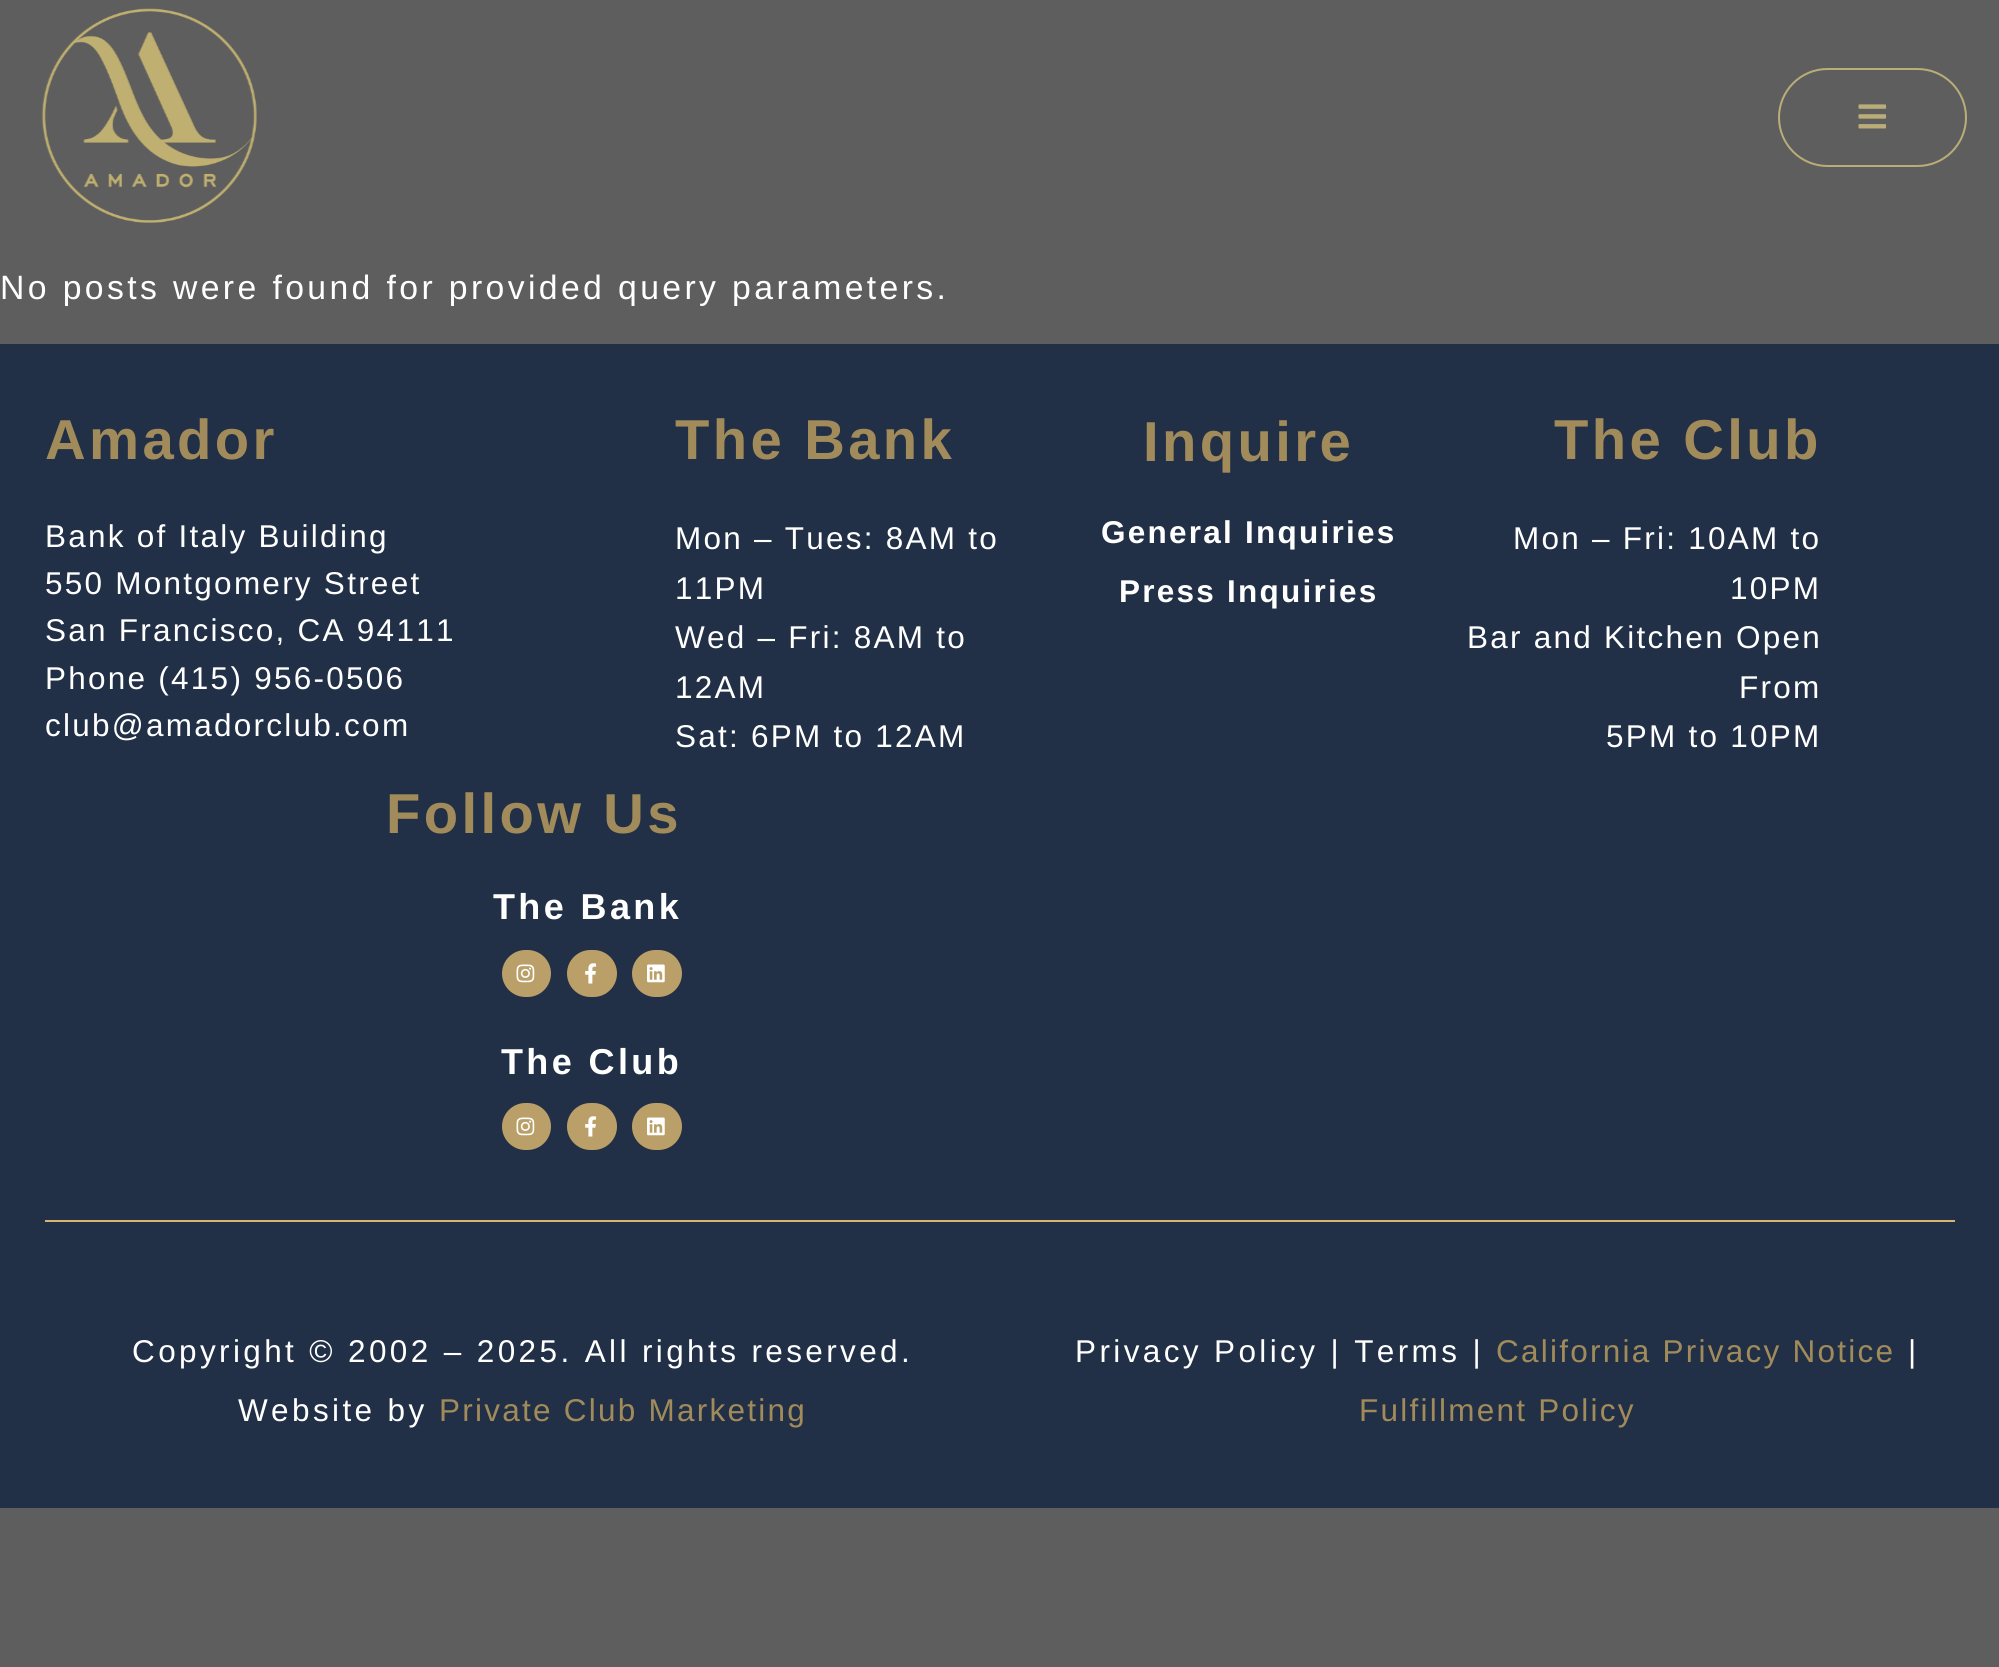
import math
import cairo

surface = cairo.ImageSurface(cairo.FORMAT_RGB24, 1999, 1667)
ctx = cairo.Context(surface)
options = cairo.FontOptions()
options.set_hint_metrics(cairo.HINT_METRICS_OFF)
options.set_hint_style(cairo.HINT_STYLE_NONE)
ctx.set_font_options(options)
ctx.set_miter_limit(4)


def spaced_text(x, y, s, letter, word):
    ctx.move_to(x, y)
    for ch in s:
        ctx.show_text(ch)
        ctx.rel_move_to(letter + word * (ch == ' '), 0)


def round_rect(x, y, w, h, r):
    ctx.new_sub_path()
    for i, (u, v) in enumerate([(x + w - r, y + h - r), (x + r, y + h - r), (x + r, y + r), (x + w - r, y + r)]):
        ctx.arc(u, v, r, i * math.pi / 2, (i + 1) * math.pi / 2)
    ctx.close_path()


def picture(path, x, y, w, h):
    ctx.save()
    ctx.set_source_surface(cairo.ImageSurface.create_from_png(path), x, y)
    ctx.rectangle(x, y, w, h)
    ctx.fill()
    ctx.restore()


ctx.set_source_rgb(0.369, 0.369, 0.369)
ctx.paint()
picture("img1.png", 41, 8, 216, 215)
round_rect(1779, 69, 187, 97, 48.5)
ctx.set_source_rgb(0.729, 0.678, 0.467)
ctx.stroke()
picture("img2.png", 1858, 104, 29, 25)
ctx.select_font_face("Liberation Sans")
ctx.set_font_size(33.75)
ctx.set_source_rgb(1, 1, 1)
spaced_text(0, 299, "No posts were found for provided query parameters.", 3.38, 0)
ctx.set_source_rgb(0.129, 0.188, 0.275)
ctx.rectangle(0, 344, 1999, 1164)
ctx.fill()
ctx.select_font_face("Liberation Sans", cairo.FONT_SLANT_NORMAL, cairo.FONT_WEIGHT_BOLD)
ctx.set_font_size(56.25)
ctx.set_source_rgb(0.635, 0.545, 0.353)
spaced_text(45, 459, "Amador", 3.38, 0)
ctx.select_font_face("Liberation Sans")
ctx.set_font_size(31.5)
ctx.set_source_rgb(1, 1, 1)
spaced_text(45, 547, "Bank of Italy Building", 2.25, 0)
spaced_text(45, 594, "550 Montgomery Street", 2.25, 0)
spaced_text(45, 641, "San Francisco, CA 94111", 2.25, 0)
spaced_text(45, 689, "Phone (415) 956-0506", 2.25, 0)
spaced_text(45, 736, "club@amadorclub.com", 2.25, 0)
ctx.select_font_face("Liberation Sans", cairo.FONT_SLANT_NORMAL, cairo.FONT_WEIGHT_BOLD)
ctx.set_font_size(56.25)
ctx.set_source_rgb(0.635, 0.545, 0.353)
spaced_text(675, 459, "The Bank", 3.38, 0)
ctx.select_font_face("Liberation Sans")
ctx.set_font_size(31.5)
ctx.set_source_rgb(1, 1, 1)
spaced_text(675, 549, "Mon – Tues: 8AM to", 2.25, 0)
spaced_text(675, 599, "11PM", 2.25, 0)
spaced_text(675, 648, "Wed – Fri: 8AM to", 2.25, 0)
spaced_text(675, 698, "12AM", 2.25, 0)
spaced_text(675, 747, "Sat: 6PM to 12AM", 2.25, 0)
ctx.select_font_face("Liberation Sans", cairo.FONT_SLANT_NORMAL, cairo.FONT_WEIGHT_BOLD)
ctx.set_font_size(56.25)
ctx.set_source_rgb(0.635, 0.545, 0.353)
spaced_text(1143, 461, "Inquire", 3.38, 0)
ctx.set_font_size(31.5)
ctx.set_source_rgb(1, 1, 1)
spaced_text(1101, 543, "General Inquiries", 2.25, 0)
spaced_text(1119, 602, "Press Inquiries", 2.25, 0)
ctx.set_font_size(56.25)
ctx.set_source_rgb(0.635, 0.545, 0.353)
spaced_text(1554, 459, "The Club", 3.38, 0)
ctx.select_font_face("Liberation Sans")
ctx.set_font_size(31.5)
ctx.set_source_rgb(1, 1, 1)
spaced_text(1513, 549, "Mon – Fri: 10AM to", 2.25, 0)
spaced_text(1730, 599, "10PM", 2.25, 0)
spaced_text(1467, 648, "Bar and Kitchen Open", 2.25, 0)
spaced_text(1739, 698, "From", 2.25, 0)
spaced_text(1606, 747, "5PM to 10PM", 2.25, 0)
ctx.select_font_face("Liberation Sans", cairo.FONT_SLANT_NORMAL, cairo.FONT_WEIGHT_BOLD)
ctx.set_font_size(56.25)
ctx.set_source_rgb(0.635, 0.545, 0.353)
spaced_text(386, 833, "Follow Us", 3.38, 0)
ctx.set_font_size(36)
ctx.set_source_rgb(1, 1, 1)
spaced_text(493, 919, "The Bank", 3.38, 0)
ctx.set_source_rgb(0.729, 0.627, 0.408)
round_rect(502, 950, 49, 47, 23.5)
ctx.fill()
picture("img3.png", 516, 964, 19, 19)
round_rect(567, 950, 50, 47, 23.5)
ctx.fill()
picture("img4.png", 585, 963, 12, 21)
round_rect(632, 950, 50, 47, 23.5)
ctx.fill()
picture("img5.png", 647, 964, 18, 19)
ctx.set_source_rgb(1, 1, 1)
spaced_text(501, 1074, "The Club", 3.38, 0)
ctx.set_source_rgb(0.729, 0.627, 0.408)
round_rect(502, 1103, 49, 47, 23.5)
ctx.fill()
picture("img3.png", 516, 1117, 19, 19)
round_rect(567, 1103, 50, 47, 23.5)
ctx.fill()
picture("img4.png", 585, 1116, 12, 21)
round_rect(632, 1103, 50, 47, 23.5)
ctx.fill()
picture("img5.png", 647, 1117, 18, 19)
ctx.set_source_rgb(0.827, 0.71, 0.455)
ctx.rectangle(45, 1220, 1910, 2)
ctx.fill()
ctx.select_font_face("Liberation Sans")
ctx.set_font_size(31.5)
ctx.set_source_rgb(1, 1, 1)
spaced_text(132, 1362, "Copyright © 2002 – 2025. All rights reserved.", 3.38, 0)
spaced_text(238, 1421, "Website by", 3.38, 0)
ctx.set_source_rgb(0.635, 0.545, 0.353)
spaced_text(439, 1421, "Private Club Marketing", 2.25, 0)
ctx.set_source_rgb(1, 1, 1)
spaced_text(1075, 1362, "Privacy Policy | Terms |", 3.38, 0)
ctx.set_source_rgb(0.635, 0.545, 0.353)
spaced_text(1496, 1362, "California Privacy Notice", 2.25, 0)
ctx.set_source_rgb(1, 1, 1)
spaced_text(1908, 1362, "|", 3.38, 0)
ctx.set_source_rgb(0.635, 0.545, 0.353)
spaced_text(1359, 1421, "Fulfillment Policy", 2.25, 0)
surface.write_to_png("page.png")
